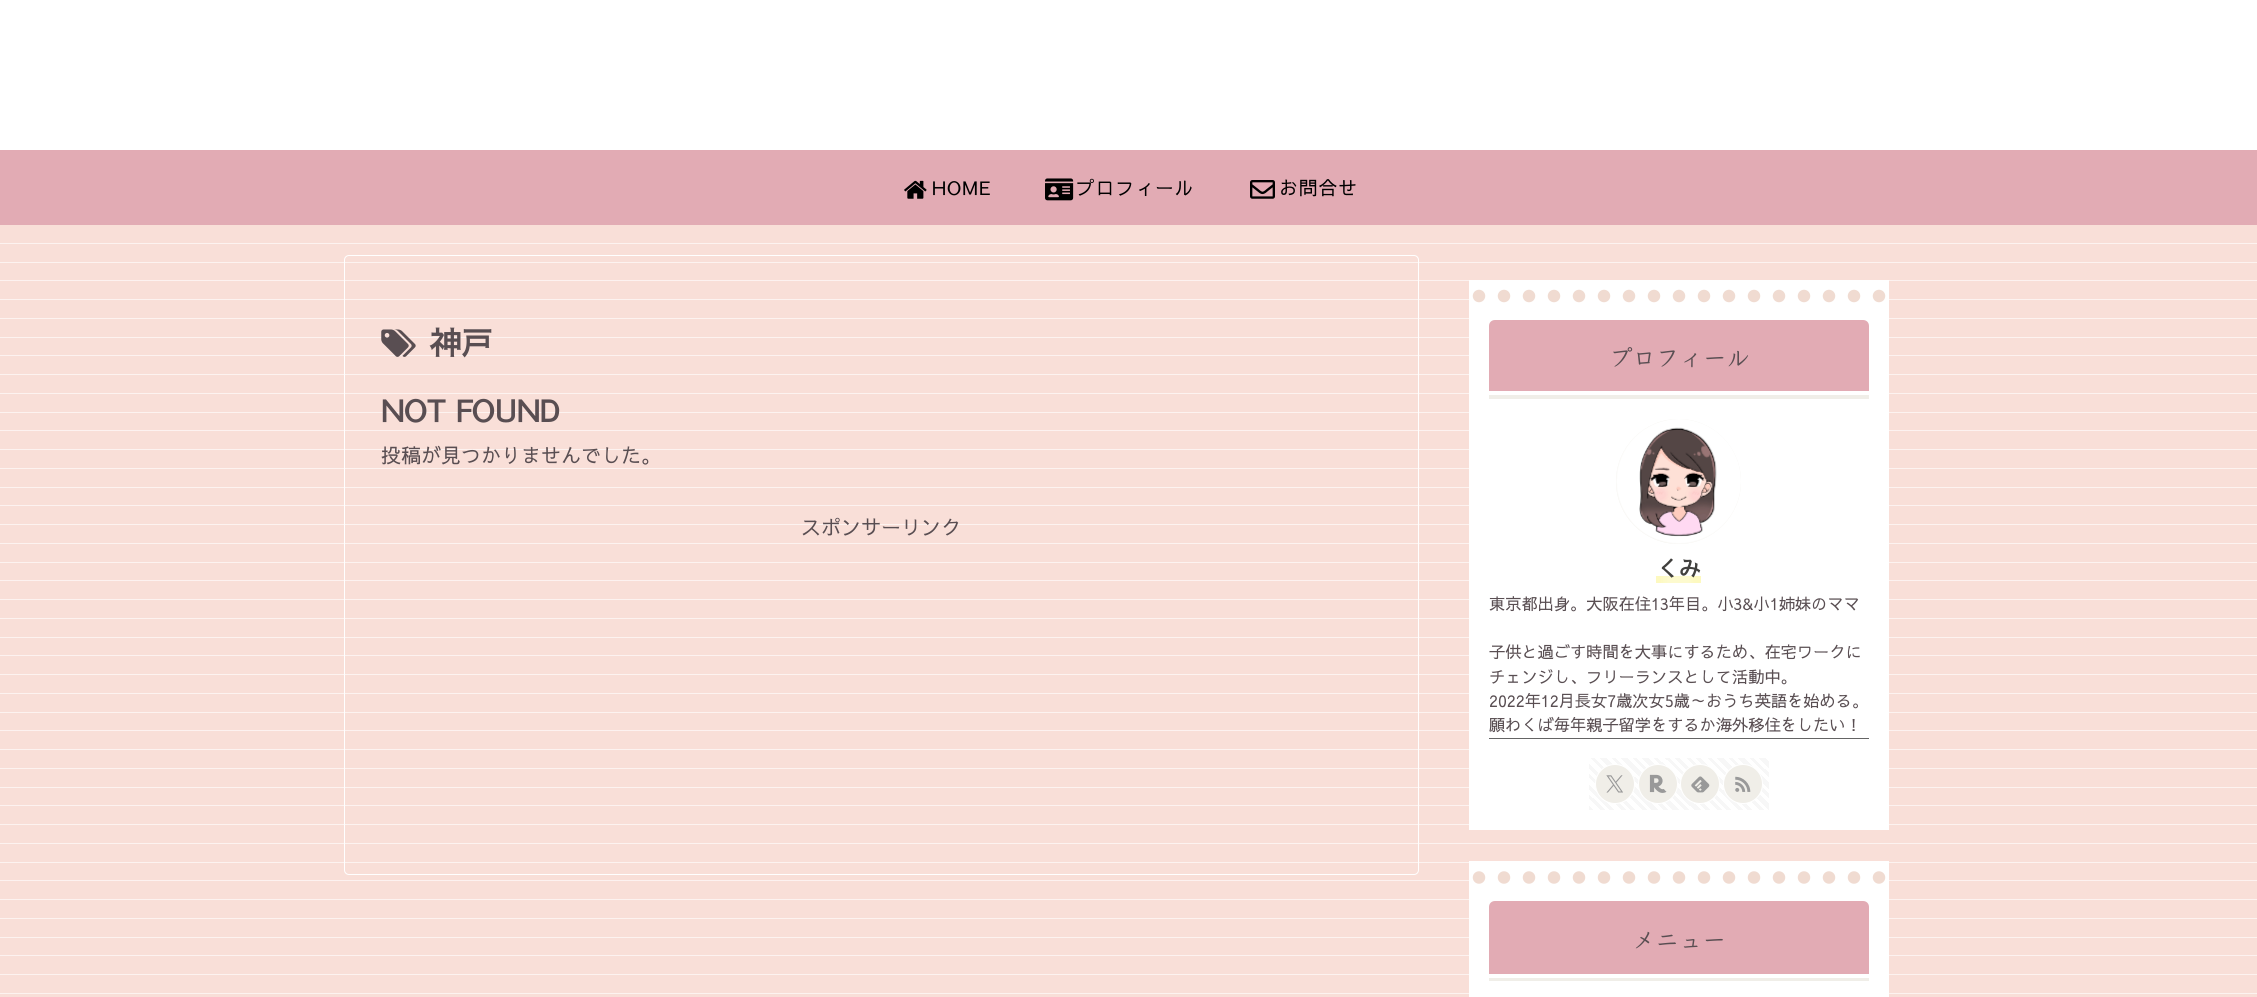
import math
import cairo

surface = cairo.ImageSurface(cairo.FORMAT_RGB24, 2257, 997)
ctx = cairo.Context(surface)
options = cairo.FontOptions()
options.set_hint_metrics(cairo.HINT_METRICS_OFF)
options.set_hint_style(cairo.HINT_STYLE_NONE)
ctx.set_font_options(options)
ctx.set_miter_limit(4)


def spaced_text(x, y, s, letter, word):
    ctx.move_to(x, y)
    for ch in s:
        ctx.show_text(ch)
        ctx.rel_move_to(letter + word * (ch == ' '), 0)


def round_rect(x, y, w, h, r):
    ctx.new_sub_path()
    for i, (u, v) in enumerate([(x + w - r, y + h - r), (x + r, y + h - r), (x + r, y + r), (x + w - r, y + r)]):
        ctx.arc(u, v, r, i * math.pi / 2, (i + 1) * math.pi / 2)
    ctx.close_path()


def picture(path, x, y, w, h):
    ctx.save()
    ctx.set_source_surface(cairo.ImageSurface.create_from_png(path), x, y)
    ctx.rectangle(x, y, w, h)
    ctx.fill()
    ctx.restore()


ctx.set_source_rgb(0.973, 0.875, 0.847)
ctx.paint()
picture("img1.png", 0, 243, 2257, 751)
ctx.set_source_rgb(1, 1, 1)
ctx.rectangle(0, 0, 2257, 150)
ctx.fill()
ctx.set_source_rgb(0.886, 0.671, 0.706)
ctx.rectangle(0, 150, 2257, 75)
ctx.fill()
picture("img2.png", 904, 180, 23, 19)
ctx.select_font_face("Sawarabi Gothic")
ctx.set_font_size(18.75)
ctx.set_source_rgb(0, 0, 0)
spaced_text(932, 195, "HOME", 1, 0)
picture("img3.png", 1045, 178, 29, 23)
spaced_text(1076, 195, "プロフィール", 1, 0)
picture("img4.png", 1250, 180, 25, 19)
spaced_text(1279, 195, "お問合せ", 1, 0)
round_rect(344.5, 255.5, 1074, 619, 4.5)
ctx.set_source_rgb(1, 1, 1)
ctx.set_line_width(1)
ctx.stroke()
picture("img5.png", 381, 329, 35, 28)
ctx.select_font_face("Sawarabi Gothic", cairo.FONT_SLANT_NORMAL, cairo.FONT_WEIGHT_BOLD)
ctx.set_font_size(32)
ctx.set_source_rgb(0.349, 0.306, 0.322)
ctx.move_to(429, 355)
ctx.show_text("神戸")
ctx.set_font_size(30)
ctx.move_to(381, 422)
ctx.show_text("NOT FOUND")
ctx.select_font_face("Sawarabi Gothic")
ctx.set_font_size(20)
ctx.move_to(381, 463)
ctx.show_text("投稿が見つかりませんでした。")
ctx.move_to(801, 535)
ctx.show_text("スポンサーリンク")
ctx.set_source_rgb(1, 1, 1)
ctx.rectangle(1469, 280, 420, 550)
ctx.fill()
ctx.new_path()
ctx.move_to(1479, 296)
ctx.line_to(1879, 296)
ctx.set_source_rgb(0.941, 0.859, 0.82)
ctx.set_line_width(12.5)
ctx.set_line_cap(cairo.LINE_CAP_ROUND)
ctx.set_dash([0, 25])
ctx.stroke()
ctx.set_source_rgb(0.941, 0.933, 0.91)
ctx.new_path()
ctx.move_to(1489, 395)
ctx.line_to(1489, 399)
ctx.line_to(1869, 399)
ctx.line_to(1869, 328)
ctx.line_to(1869, 395)
ctx.close_path()
ctx.fill()
ctx.set_source_rgb(0.886, 0.671, 0.706)
ctx.new_path()
ctx.move_to(1495, 320)
ctx.line_to(1863, 320)
ctx.curve_to(1866.5, 320, 1869, 322.5, 1869, 326)
ctx.line_to(1869, 395)
ctx.line_to(1489, 395)
ctx.line_to(1489, 326)
ctx.curve_to(1489, 322.5, 1491.5, 320, 1495, 320)
ctx.close_path()
ctx.fill()
ctx.set_source_rgb(1, 1, 1)
ctx.rectangle(1489, 391, 380, 4)
ctx.fill()
ctx.select_font_face("Klee One SemiBold")
ctx.set_font_size(23.5)
ctx.set_source_rgb(0.349, 0.306, 0.322)
ctx.move_to(1609, 366)
ctx.show_text("プロフィール")
ctx.set_source_rgb(0.941, 0.933, 0.91)
ctx.new_path()
ctx.arc(1678.5, 481.5, 62.5, 0, 2 * math.pi)
ctx.fill()
picture("img6.png", 1616, 419, 125, 125)
gradient = cairo.LinearGradient(1701, 579, 1656, 579)
gradient.add_color_stop_rgba(0.14, 0.996, 0.988, 0.886, 1)
gradient.add_color_stop_rgba(0.28, 1, 1, 1, 1)
ctx.set_source(gradient)
ctx.rectangle(1689, 576, 12, 7)
ctx.fill()
ctx.set_source_rgba(0.988, 0.965, 0.624, 0.5)
ctx.rectangle(1656, 576, 45, 7)
ctx.fill()
gradient = cairo.LinearGradient(1656, 579, 1701, 579)
gradient.add_color_stop_rgba(0.08, 0.988, 0.965, 0.624, 0.3)
gradient.add_color_stop_rgba(0.28, 0.988, 0.965, 0.624, 0)
ctx.set_source(gradient)
ctx.rectangle(1656, 576, 12, 7)
ctx.fill()
ctx.select_font_face("Sawarabi Gothic", cairo.FONT_SLANT_NORMAL, cairo.FONT_WEIGHT_BOLD)
ctx.set_font_size(22)
ctx.set_source_rgb(0.255, 0.251, 0.243)
ctx.move_to(1657, 577)
ctx.show_text("くみ")
gradient = cairo.LinearGradient(1679, 714, 1679, 738)
gradient.add_color_stop_rgba(0, 1, 1, 1, 1)
gradient.add_color_stop_rgba(0.98, 1, 1, 1, 1)
gradient.add_color_stop_rgba(1, 0.392, 0.392, 0.392, 1)
ctx.set_source(gradient)
ctx.rectangle(1489, 738, 380, 1)
ctx.fill()
ctx.select_font_face("Sawarabi Gothic")
ctx.set_font_size(16.2)
ctx.set_source_rgb(0.349, 0.306, 0.322)
ctx.move_to(1489, 610)
ctx.show_text("東京都出身。大阪在住13年目。小3&小1姉妹のママ")
ctx.move_to(1489, 658)
ctx.show_text("子供と過ごす時間を大事にするため、在宅ワークに")
ctx.move_to(1489, 683)
ctx.show_text("チェンジし、フリーランスとして活動中。")
ctx.move_to(1489, 707)
ctx.show_text("2022年12月長女7歳次女5歳～おうち英語を始める。")
ctx.move_to(1489, 731)
ctx.show_text("願わくば毎年親子留学をするか海外移住をしたい！")
gradient = cairo.LinearGradient(1621, 842, 1737, 725)
gradient.add_color_stop_rgba(0, 0.969, 0.969, 0.969, 1)
gradient.add_color_stop_rgba(0.02, 0.969, 0.969, 0.969, 1)
gradient.add_color_stop_rgba(0.02, 1, 1, 1, 1)
gradient.add_color_stop_rgba(0.05, 1, 1, 1, 1)
gradient.add_color_stop_rgba(0.05, 0.969, 0.969, 0.969, 1)
gradient.add_color_stop_rgba(0.07, 0.969, 0.969, 0.969, 1)
gradient.add_color_stop_rgba(0.07, 1, 1, 1, 1)
gradient.add_color_stop_rgba(0.09, 1, 1, 1, 1)
gradient.add_color_stop_rgba(0.09, 0.969, 0.969, 0.969, 1)
gradient.add_color_stop_rgba(0.11, 0.969, 0.969, 0.969, 1)
gradient.add_color_stop_rgba(0.11, 1, 1, 1, 1)
gradient.add_color_stop_rgba(0.14, 1, 1, 1, 1)
gradient.add_color_stop_rgba(0.14, 0.969, 0.969, 0.969, 1)
gradient.add_color_stop_rgba(0.16, 0.969, 0.969, 0.969, 1)
gradient.add_color_stop_rgba(0.16, 1, 1, 1, 1)
gradient.add_color_stop_rgba(0.18, 1, 1, 1, 1)
gradient.add_color_stop_rgba(0.18, 0.969, 0.969, 0.969, 1)
gradient.add_color_stop_rgba(0.2, 0.969, 0.969, 0.969, 1)
gradient.add_color_stop_rgba(0.2, 1, 1, 1, 1)
gradient.add_color_stop_rgba(0.23, 1, 1, 1, 1)
gradient.add_color_stop_rgba(0.23, 0.969, 0.969, 0.969, 1)
gradient.add_color_stop_rgba(0.25, 0.969, 0.969, 0.969, 1)
gradient.add_color_stop_rgba(0.25, 1, 1, 1, 1)
gradient.add_color_stop_rgba(0.27, 1, 1, 1, 1)
gradient.add_color_stop_rgba(0.27, 0.969, 0.969, 0.969, 1)
gradient.add_color_stop_rgba(0.3, 0.969, 0.969, 0.969, 1)
gradient.add_color_stop_rgba(0.3, 1, 1, 1, 1)
gradient.add_color_stop_rgba(0.32, 1, 1, 1, 1)
gradient.add_color_stop_rgba(0.32, 0.969, 0.969, 0.969, 1)
gradient.add_color_stop_rgba(0.34, 0.969, 0.969, 0.969, 1)
gradient.add_color_stop_rgba(0.34, 1, 1, 1, 1)
gradient.add_color_stop_rgba(0.36, 1, 1, 1, 1)
gradient.add_color_stop_rgba(0.36, 0.969, 0.969, 0.969, 1)
gradient.add_color_stop_rgba(0.39, 0.969, 0.969, 0.969, 1)
gradient.add_color_stop_rgba(0.39, 1, 1, 1, 1)
gradient.add_color_stop_rgba(0.41, 1, 1, 1, 1)
gradient.add_color_stop_rgba(0.41, 0.969, 0.969, 0.969, 1)
gradient.add_color_stop_rgba(0.43, 0.969, 0.969, 0.969, 1)
gradient.add_color_stop_rgba(0.43, 1, 1, 1, 1)
gradient.add_color_stop_rgba(0.45, 1, 1, 1, 1)
gradient.add_color_stop_rgba(0.45, 0.969, 0.969, 0.969, 1)
gradient.add_color_stop_rgba(0.48, 0.969, 0.969, 0.969, 1)
gradient.add_color_stop_rgba(0.48, 1, 1, 1, 1)
gradient.add_color_stop_rgba(0.5, 1, 1, 1, 1)
gradient.add_color_stop_rgba(0.5, 0.969, 0.969, 0.969, 1)
gradient.add_color_stop_rgba(0.52, 0.969, 0.969, 0.969, 1)
gradient.add_color_stop_rgba(0.52, 1, 1, 1, 1)
gradient.add_color_stop_rgba(0.55, 1, 1, 1, 1)
gradient.add_color_stop_rgba(0.55, 0.969, 0.969, 0.969, 1)
gradient.add_color_stop_rgba(0.57, 0.969, 0.969, 0.969, 1)
gradient.add_color_stop_rgba(0.57, 1, 1, 1, 1)
gradient.add_color_stop_rgba(0.59, 1, 1, 1, 1)
gradient.add_color_stop_rgba(0.59, 0.969, 0.969, 0.969, 1)
gradient.add_color_stop_rgba(0.61, 0.969, 0.969, 0.969, 1)
gradient.add_color_stop_rgba(0.61, 1, 1, 1, 1)
gradient.add_color_stop_rgba(0.64, 1, 1, 1, 1)
gradient.add_color_stop_rgba(0.64, 0.969, 0.969, 0.969, 1)
gradient.add_color_stop_rgba(0.66, 0.969, 0.969, 0.969, 1)
gradient.add_color_stop_rgba(0.66, 1, 1, 1, 1)
gradient.add_color_stop_rgba(0.68, 1, 1, 1, 1)
gradient.add_color_stop_rgba(0.68, 0.969, 0.969, 0.969, 1)
gradient.add_color_stop_rgba(0.7, 0.969, 0.969, 0.969, 1)
gradient.add_color_stop_rgba(0.7, 1, 1, 1, 1)
gradient.add_color_stop_rgba(0.73, 1, 1, 1, 1)
gradient.add_color_stop_rgba(0.73, 0.969, 0.969, 0.969, 1)
gradient.add_color_stop_rgba(0.75, 0.969, 0.969, 0.969, 1)
gradient.add_color_stop_rgba(0.75, 1, 1, 1, 1)
gradient.add_color_stop_rgba(0.77, 1, 1, 1, 1)
gradient.add_color_stop_rgba(0.77, 0.969, 0.969, 0.969, 1)
gradient.add_color_stop_rgba(0.8, 0.969, 0.969, 0.969, 1)
gradient.add_color_stop_rgba(0.8, 1, 1, 1, 1)
gradient.add_color_stop_rgba(0.82, 1, 1, 1, 1)
gradient.add_color_stop_rgba(0.82, 0.969, 0.969, 0.969, 1)
gradient.add_color_stop_rgba(0.84, 0.969, 0.969, 0.969, 1)
gradient.add_color_stop_rgba(0.84, 1, 1, 1, 1)
gradient.add_color_stop_rgba(0.86, 1, 1, 1, 1)
gradient.add_color_stop_rgba(0.86, 0.969, 0.969, 0.969, 1)
gradient.add_color_stop_rgba(0.89, 0.969, 0.969, 0.969, 1)
gradient.add_color_stop_rgba(0.89, 1, 1, 1, 1)
gradient.add_color_stop_rgba(0.91, 1, 1, 1, 1)
gradient.add_color_stop_rgba(0.91, 0.969, 0.969, 0.969, 1)
gradient.add_color_stop_rgba(0.93, 0.969, 0.969, 0.969, 1)
gradient.add_color_stop_rgba(0.93, 1, 1, 1, 1)
gradient.add_color_stop_rgba(0.95, 1, 1, 1, 1)
gradient.add_color_stop_rgba(0.95, 0.969, 0.969, 0.969, 1)
gradient.add_color_stop_rgba(0.98, 0.969, 0.969, 0.969, 1)
gradient.add_color_stop_rgba(0.98, 1, 1, 1, 1)
gradient.add_color_stop_rgba(1, 1, 1, 1, 1)
ctx.set_source(gradient)
ctx.rectangle(1589, 758, 180, 52)
ctx.fill()
ctx.set_source_rgb(0.941, 0.933, 0.91)
ctx.arc(1615, 784, 19.5, 0, 2 * math.pi)
ctx.fill_preserve()
ctx.set_source_rgb(1, 1, 1)
ctx.set_line_width(1)
ctx.set_line_cap(cairo.LINE_CAP_BUTT)
ctx.set_dash([])
ctx.stroke()
picture("img7.png", 1606, 775, 17, 18)
ctx.set_source_rgb(0.941, 0.933, 0.91)
ctx.arc(1658, 784, 19.5, 0, 2 * math.pi)
ctx.fill_preserve()
ctx.set_source_rgb(1, 1, 1)
ctx.stroke()
picture("img8.png", 1649, 774, 18, 19)
ctx.set_source_rgb(0.941, 0.933, 0.91)
ctx.arc(1700, 784, 19.5, 0, 2 * math.pi)
ctx.fill_preserve()
ctx.set_source_rgb(1, 1, 1)
ctx.stroke()
picture("img9.png", 1691, 776, 19, 17)
ctx.set_source_rgb(0.941, 0.933, 0.91)
ctx.arc(1743, 784, 19.5, 0, 2 * math.pi)
ctx.fill_preserve()
ctx.set_source_rgb(1, 1, 1)
ctx.stroke()
picture("img10.png", 1735, 776, 16, 16)
ctx.rectangle(1469, 861, 420, 136)
ctx.fill()
ctx.new_path()
ctx.move_to(1479, 877.5)
ctx.line_to(1879, 877.5)
ctx.set_source_rgb(0.941, 0.859, 0.82)
ctx.set_line_width(12.5)
ctx.set_line_cap(cairo.LINE_CAP_ROUND)
ctx.set_dash([0, 25])
ctx.stroke()
ctx.set_source_rgb(0.941, 0.933, 0.91)
ctx.new_path()
ctx.move_to(1489, 978)
ctx.line_to(1489, 981)
ctx.line_to(1869, 981)
ctx.line_to(1869, 909)
ctx.line_to(1869, 978)
ctx.close_path()
ctx.fill()
ctx.set_source_rgb(0.886, 0.671, 0.706)
ctx.new_path()
ctx.move_to(1495, 901)
ctx.line_to(1863, 901)
ctx.curve_to(1866.5, 901, 1869, 903.5, 1869, 907)
ctx.line_to(1869, 978)
ctx.line_to(1489, 978)
ctx.line_to(1489, 907)
ctx.curve_to(1489, 903.5, 1491.5, 901, 1495, 901)
ctx.close_path()
ctx.fill()
ctx.set_source_rgb(1, 1, 1)
ctx.rectangle(1489, 974, 380, 4)
ctx.fill()
ctx.select_font_face("Klee One SemiBold")
ctx.set_font_size(23.5)
ctx.set_source_rgb(0.349, 0.306, 0.322)
ctx.move_to(1632, 948)
ctx.show_text("メニュー")
surface.write_to_png("page.png")
